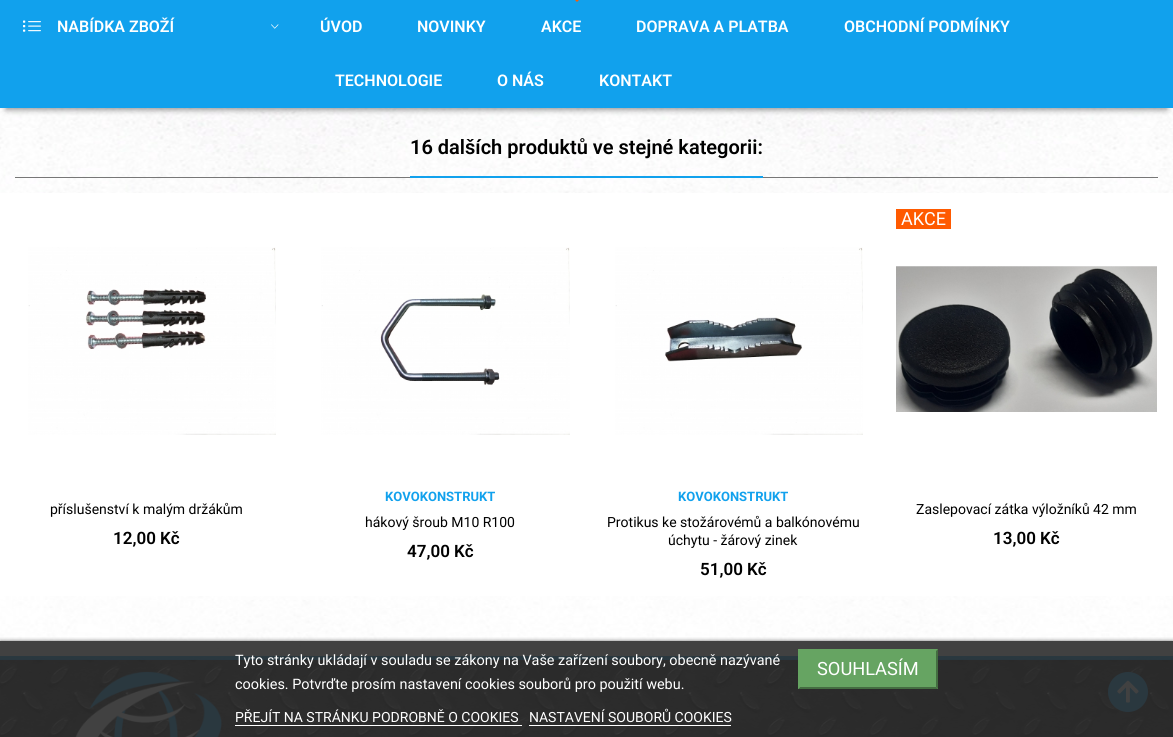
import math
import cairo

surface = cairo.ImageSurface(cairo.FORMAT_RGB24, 1173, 737)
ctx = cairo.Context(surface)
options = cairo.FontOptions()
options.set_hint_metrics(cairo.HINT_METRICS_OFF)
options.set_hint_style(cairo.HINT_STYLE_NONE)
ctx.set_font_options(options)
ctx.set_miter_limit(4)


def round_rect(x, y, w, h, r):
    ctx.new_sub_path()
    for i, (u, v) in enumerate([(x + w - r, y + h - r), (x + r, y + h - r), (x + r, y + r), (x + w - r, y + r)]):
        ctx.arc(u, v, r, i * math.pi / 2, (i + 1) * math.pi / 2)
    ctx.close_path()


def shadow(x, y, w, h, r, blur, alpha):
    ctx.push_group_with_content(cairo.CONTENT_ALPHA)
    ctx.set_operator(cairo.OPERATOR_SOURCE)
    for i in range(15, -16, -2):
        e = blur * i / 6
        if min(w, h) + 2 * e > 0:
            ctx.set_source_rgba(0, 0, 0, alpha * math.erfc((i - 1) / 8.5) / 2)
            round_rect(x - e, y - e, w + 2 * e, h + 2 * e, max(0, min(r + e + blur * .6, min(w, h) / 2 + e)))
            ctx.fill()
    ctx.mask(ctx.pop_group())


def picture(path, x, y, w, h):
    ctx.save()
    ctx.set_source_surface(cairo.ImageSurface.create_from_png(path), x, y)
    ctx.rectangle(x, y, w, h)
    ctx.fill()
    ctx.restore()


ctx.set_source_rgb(1, 1, 1)
ctx.paint()
picture("img1.png", 0, 108, 1173, 548)
ctx.set_source_rgb(0, 0, 0)
shadow(6, 14, 1161, 96, 0, 3, 0.4)
ctx.set_source_rgb(0.067, 0.631, 0.929)
ctx.rectangle(0, 0, 1173, 108)
ctx.fill()
picture("img2.png", 23, 20, 18, 12)
ctx.select_font_face("Roboto SemiBold")
ctx.set_font_size(16)
ctx.set_source_rgb(1, 1, 1)
ctx.move_to(57, 32)
ctx.show_text("NABÍDKA ZBOŽÍ")
picture("img3.png", 271, 24, 8, 5)
ctx.move_to(320, 32)
ctx.show_text("ÚVOD")
ctx.move_to(417, 32)
ctx.show_text("NOVINKY")
ctx.set_source_rgb(1, 0.353, 0)
ctx.new_path()
ctx.move_to(573, -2)
ctx.line_to(581, -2)
ctx.line_to(577, 2)
ctx.close_path()
ctx.fill()
ctx.set_source_rgb(1, 1, 1)
ctx.move_to(541, 32)
ctx.show_text("AKCE")
ctx.move_to(636, 32)
ctx.show_text("DOPRAVA A PLATBA")
ctx.move_to(844, 32)
ctx.show_text("OBCHODNÍ PODMÍNKY")
ctx.move_to(335, 86)
ctx.show_text("TECHNOLOGIE")
ctx.move_to(497, 86)
ctx.show_text("O NÁS")
ctx.move_to(599, 86)
ctx.show_text("KONTAKT")
ctx.set_source_rgb(0.467, 0.467, 0.467)
ctx.rectangle(15, 177, 1143, 1)
ctx.fill()
ctx.set_font_size(20)
ctx.set_source_rgb(0, 0, 0)
ctx.move_to(410, 154)
ctx.show_text("16 dalších produktů ve stejné kategorii:")
ctx.set_source_rgb(0.067, 0.631, 0.929)
ctx.rectangle(410, 176, 353, 2)
ctx.fill()
ctx.set_source_rgb(1, 1, 1)
ctx.rectangle(0, 193, 1173, 403)
ctx.fill()
picture("img4.png", 28, 247, 248, 188)
ctx.select_font_face("Roboto")
ctx.set_font_size(14)
ctx.set_source_rgb(0, 0, 0)
ctx.move_to(50, 514)
ctx.show_text("příslušenství k malým držákům")
ctx.select_font_face("Roboto SemiBold")
ctx.set_font_size(17)
ctx.move_to(113, 544)
ctx.show_text("12,00 Kč")
picture("img5.png", 321, 247, 249, 188)
ctx.select_font_face("Roboto", cairo.FONT_SLANT_NORMAL, cairo.FONT_WEIGHT_BOLD)
ctx.set_font_size(13)
ctx.set_source_rgb(0.067, 0.631, 0.929)
ctx.move_to(385, 501)
ctx.show_text("KOVOKONSTRUKT")
ctx.select_font_face("Roboto")
ctx.set_font_size(14)
ctx.set_source_rgb(0, 0, 0)
ctx.move_to(365, 527)
ctx.show_text("hákový šroub M10 R100")
ctx.select_font_face("Roboto SemiBold")
ctx.set_font_size(17)
ctx.move_to(407, 557)
ctx.show_text("47,00 Kč")
picture("img6.png", 615, 247, 248, 188)
ctx.select_font_face("Roboto", cairo.FONT_SLANT_NORMAL, cairo.FONT_WEIGHT_BOLD)
ctx.set_font_size(13)
ctx.set_source_rgb(0.067, 0.631, 0.929)
ctx.move_to(678, 501)
ctx.show_text("KOVOKONSTRUKT")
ctx.select_font_face("Roboto")
ctx.set_font_size(14)
ctx.set_source_rgb(0, 0, 0)
ctx.move_to(607, 527)
ctx.show_text("Protikus ke stožárovémů a balkónovému")
ctx.move_to(668, 545)
ctx.show_text("úchytu - žárový zinek")
ctx.select_font_face("Roboto SemiBold")
ctx.set_font_size(17)
ctx.move_to(700, 575)
ctx.show_text("51,00 Kč")
ctx.set_source_rgb(1, 0.353, 0)
ctx.rectangle(896, 209, 55, 20)
ctx.fill()
ctx.select_font_face("Roboto")
ctx.set_font_size(18)
ctx.set_source_rgb(1, 1, 1)
ctx.move_to(901, 225)
ctx.show_text("AKCE")
picture("img7.png", 896, 266, 261, 146)
ctx.set_font_size(14)
ctx.set_source_rgb(0, 0, 0)
ctx.move_to(916, 514)
ctx.show_text("Zaslepovací zátka výložníků 42 mm")
ctx.select_font_face("Roboto SemiBold")
ctx.set_font_size(17)
ctx.move_to(993, 544)
ctx.show_text("13,00 Kč")
picture("img8.png", 0, 656, 1173, 81)
picture("img9.png", 75, 671, 147, 66)
ctx.set_source_rgb(0.067, 0.631, 0.929)
ctx.arc(1128, 692, 20, 0, 2 * math.pi)
ctx.fill()
picture("img10.png", 1117, 680, 22, 23)
ctx.save()
ctx.rectangle(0, 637, 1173, 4)
ctx.clip()
ctx.set_source_rgb(0.176, 0.176, 0.176)
shadow(0, 642, 1173, 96, 0, 2.5, 1)
ctx.restore()
ctx.set_source_rgba(0.176, 0.176, 0.176, 0.9)
ctx.rectangle(0, 641, 1173, 96)
ctx.fill()
ctx.select_font_face("Roboto")
ctx.set_font_size(14.4)
ctx.set_source_rgb(1, 1, 1)
ctx.move_to(235, 665)
ctx.show_text("Tyto stránky ukládají v souladu se zákony na Vaše zařízení soubory, obecně nazývané")
ctx.move_to(235, 689)
ctx.show_text("cookies. Potvrďte prosím nastavení cookies souborů pro použití webu.")
ctx.set_font_size(14)
ctx.move_to(235, 722)
ctx.show_text("PŘEJÍT NA STRÁNKU PODROBNĚ O COOKIES")
ctx.rectangle(235, 725, 287, 1)
ctx.fill()
ctx.move_to(529, 722)
ctx.show_text("NASTAVENÍ SOUBORŮ COOKIES")
ctx.rectangle(529, 725, 202, 1)
ctx.fill()
ctx.set_source_rgb(0.4, 0.643, 0.384)
ctx.rectangle(798, 649, 140, 40)
ctx.fill()
ctx.set_source_rgb(0.267, 0.427, 0.255)
ctx.new_path()
ctx.move_to(938, 649)
ctx.line_to(938, 689)
ctx.line_to(936, 687)
ctx.line_to(936, 651)
ctx.close_path()
ctx.fill()
ctx.new_path()
ctx.move_to(938, 689)
ctx.line_to(798, 689)
ctx.line_to(800, 687)
ctx.line_to(936, 687)
ctx.close_path()
ctx.fill()
ctx.set_source_rgb(0.4, 0.643, 0.384)
ctx.new_path()
ctx.move_to(798, 689)
ctx.line_to(798, 649)
ctx.line_to(800, 651)
ctx.line_to(800, 687)
ctx.close_path()
ctx.fill()
ctx.set_font_size(18.25)
ctx.set_source_rgb(1, 1, 1)
ctx.move_to(817, 675)
ctx.show_text("SOUHLASÍM")
surface.write_to_png("page.png")
